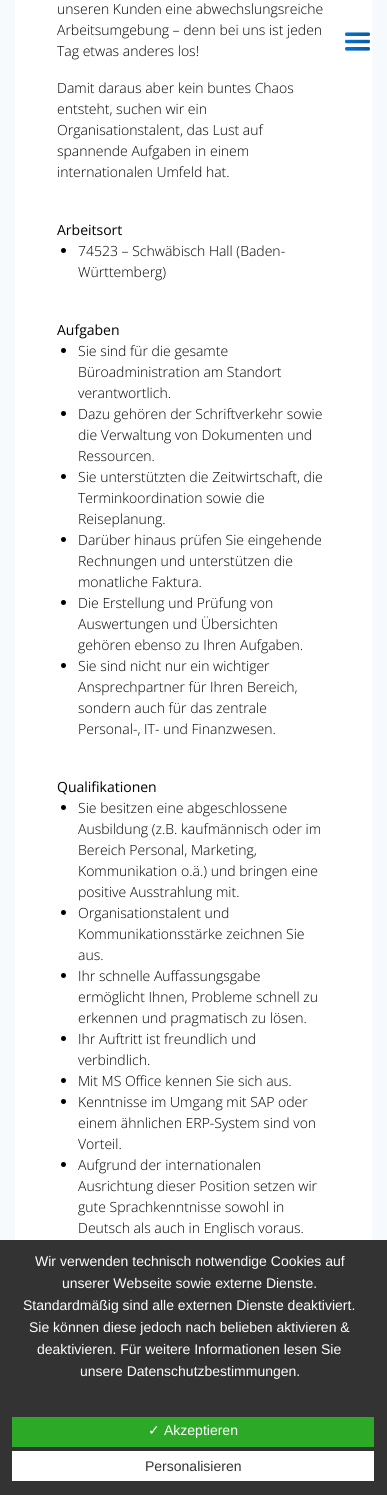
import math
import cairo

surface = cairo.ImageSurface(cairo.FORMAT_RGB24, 387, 1495)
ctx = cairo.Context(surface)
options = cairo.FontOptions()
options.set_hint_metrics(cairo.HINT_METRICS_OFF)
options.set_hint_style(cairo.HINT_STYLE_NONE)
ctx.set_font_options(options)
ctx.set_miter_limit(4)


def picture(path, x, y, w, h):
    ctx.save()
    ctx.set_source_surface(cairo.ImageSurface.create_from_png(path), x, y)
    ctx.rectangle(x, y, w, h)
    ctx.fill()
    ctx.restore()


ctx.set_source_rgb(0.961, 0.98, 0.992)
ctx.paint()
ctx.set_source_rgb(1, 1, 1)
ctx.rectangle(15, 0, 357, 1240)
ctx.fill()
ctx.select_font_face("Open Sans Light")
ctx.set_font_size(14)
ctx.set_source_rgb(0, 0, 0)
ctx.move_to(57, 14)
ctx.show_text("unseren Kunden eine abwechslungsreiche")
ctx.move_to(57, 35)
ctx.show_text("Arbeitsumgebung – denn bei uns ist jeden")
ctx.move_to(57, 56)
ctx.show_text("Tag etwas anderes los!")
ctx.move_to(57, 93)
ctx.show_text("Damit daraus aber kein buntes Chaos")
ctx.move_to(57, 114)
ctx.show_text("entsteht, suchen wir ein")
ctx.move_to(57, 135)
ctx.show_text("Organisationstalent, das Lust auf")
ctx.move_to(57, 156)
ctx.show_text("spannende Aufgaben in einem")
ctx.move_to(57, 177)
ctx.show_text("internationalen Umfeld hat.")
ctx.select_font_face("Open Sans")
ctx.move_to(57, 235)
ctx.show_text("Arbeitsort")
ctx.new_path()
ctx.arc(63.5, 250.5, 2.5, 0, 2 * math.pi)
ctx.fill()
ctx.select_font_face("Open Sans Light")
ctx.move_to(78, 256)
ctx.show_text("74523 – Schwäbisch Hall (Baden-")
ctx.move_to(78, 277)
ctx.show_text("Württemberg)")
ctx.select_font_face("Open Sans")
ctx.move_to(57, 335)
ctx.show_text("Aufgaben")
ctx.new_path()
ctx.arc(63.5, 350.5, 2.5, 0, 2 * math.pi)
ctx.fill()
ctx.select_font_face("Open Sans Light")
ctx.move_to(78, 356)
ctx.show_text("Sie sind für die gesamte")
ctx.move_to(78, 377)
ctx.show_text("Büroadministration am Standort")
ctx.move_to(78, 398)
ctx.show_text("verantwortlich.")
ctx.new_path()
ctx.arc(63.5, 413.5, 2.5, 0, 2 * math.pi)
ctx.fill()
ctx.move_to(78, 419)
ctx.show_text("Dazu gehören der Schriftverkehr sowie")
ctx.move_to(78, 440)
ctx.show_text("die Verwaltung von Dokumenten und")
ctx.move_to(78, 461)
ctx.show_text("Ressourcen.")
ctx.new_path()
ctx.arc(63.5, 476.5, 2.5, 0, 2 * math.pi)
ctx.fill()
ctx.move_to(78, 482)
ctx.show_text("Sie unterstützten die Zeitwirtschaft, die")
ctx.move_to(78, 503)
ctx.show_text("Terminkoordination sowie die")
ctx.move_to(78, 524)
ctx.show_text("Reiseplanung.")
ctx.new_path()
ctx.arc(63.5, 539.5, 2.5, 0, 2 * math.pi)
ctx.fill()
ctx.move_to(78, 545)
ctx.show_text("Darüber hinaus prüfen Sie eingehende")
ctx.move_to(78, 566)
ctx.show_text("Rechnungen und unterstützen die")
ctx.move_to(78, 587)
ctx.show_text("monatliche Faktura.")
ctx.new_path()
ctx.arc(63.5, 602.5, 2.5, 0, 2 * math.pi)
ctx.fill()
ctx.move_to(78, 608)
ctx.show_text("Die Erstellung und Prüfung von")
ctx.move_to(78, 629)
ctx.show_text("Auswertungen und Übersichten")
ctx.move_to(78, 650)
ctx.show_text("gehören ebenso zu Ihren Aufgaben.")
ctx.new_path()
ctx.arc(63.5, 665.5, 2.5, 0, 2 * math.pi)
ctx.fill()
ctx.move_to(78, 671)
ctx.show_text("Sie sind nicht nur ein wichtiger")
ctx.move_to(78, 692)
ctx.show_text("Ansprechpartner für Ihren Bereich,")
ctx.move_to(78, 713)
ctx.show_text("sondern auch für das zentrale")
ctx.move_to(78, 734)
ctx.show_text("Personal-, IT- und Finanzwesen.")
ctx.select_font_face("Open Sans")
ctx.move_to(57, 792)
ctx.show_text("Qualifikationen")
ctx.new_path()
ctx.arc(63.5, 807.5, 2.5, 0, 2 * math.pi)
ctx.fill()
ctx.select_font_face("Open Sans Light")
ctx.move_to(78, 813)
ctx.show_text("Sie besitzen eine abgeschlossene")
ctx.move_to(78, 834)
ctx.show_text("Ausbildung (z.B. kaufmännisch oder im")
ctx.move_to(78, 855)
ctx.show_text("Bereich Personal, Marketing,")
ctx.move_to(78, 876)
ctx.show_text("Kommunikation o.ä.) und bringen eine")
ctx.move_to(78, 897)
ctx.show_text("positive Ausstrahlung mit.")
ctx.new_path()
ctx.arc(63.5, 912.5, 2.5, 0, 2 * math.pi)
ctx.fill()
ctx.move_to(78, 918)
ctx.show_text("Organisationstalent und")
ctx.move_to(78, 939)
ctx.show_text("Kommunikationsstärke zeichnen Sie")
ctx.move_to(78, 960)
ctx.show_text("aus.")
ctx.new_path()
ctx.arc(63.5, 975.5, 2.5, 0, 2 * math.pi)
ctx.fill()
ctx.move_to(78, 981)
ctx.show_text("Ihr schnelle Auffassungsgabe")
ctx.move_to(78, 1002)
ctx.show_text("ermöglicht Ihnen, Probleme schnell zu")
ctx.move_to(78, 1023)
ctx.show_text("erkennen und pragmatisch zu lösen.")
ctx.new_path()
ctx.arc(63.5, 1038.5, 2.5, 0, 2 * math.pi)
ctx.fill()
ctx.move_to(78, 1044)
ctx.show_text("Ihr Auftritt ist freundlich und")
ctx.move_to(78, 1065)
ctx.show_text("verbindlich.")
ctx.new_path()
ctx.arc(63.5, 1080.5, 2.5, 0, 2 * math.pi)
ctx.fill()
ctx.move_to(78, 1086)
ctx.show_text("Mit MS Office kennen Sie sich aus.")
ctx.new_path()
ctx.arc(63.5, 1101.5, 2.5, 0, 2 * math.pi)
ctx.fill()
ctx.move_to(78, 1107)
ctx.show_text("Kenntnisse im Umgang mit SAP oder")
ctx.move_to(78, 1128)
ctx.show_text("einem ähnlichen ERP-System sind von")
ctx.move_to(78, 1149)
ctx.show_text("Vorteil.")
ctx.new_path()
ctx.arc(63.5, 1164.5, 2.5, 0, 2 * math.pi)
ctx.fill()
ctx.move_to(78, 1170)
ctx.show_text("Aufgrund der internationalen")
ctx.move_to(78, 1191)
ctx.show_text("Ausrichtung dieser Position setzen wir")
ctx.move_to(78, 1212)
ctx.show_text("gute Sprachkenntnisse sowohl in")
ctx.move_to(78, 1233)
ctx.show_text("Deutsch als auch in Englisch voraus.")
picture("img1.png", 345, 32, 25, 19)
ctx.set_source_rgb(0.2, 0.2, 0.2)
ctx.rectangle(0, 1240, 387, 255)
ctx.fill()
ctx.select_font_face("Liberation Sans")
ctx.set_source_rgb(1, 1, 1)
ctx.move_to(35, 1266)
ctx.show_text("Wir verwenden technisch notwendige Cookies auf")
ctx.move_to(62, 1288)
ctx.show_text("unserer Webseite sowie externe Dienste.")
ctx.move_to(23, 1310)
ctx.show_text("Standardmäßig sind alle externen Dienste deaktiviert.")
ctx.move_to(29, 1332)
ctx.show_text("Sie können diese jedoch nach belieben aktivieren &")
ctx.move_to(37, 1354)
ctx.show_text("deaktivieren. Für weitere Informationen lesen Sie")
ctx.move_to(80, 1376)
ctx.show_text("unsere Datenschutzbestimmungen.")
ctx.set_source_rgb(0.173, 0.667, 0.153)
ctx.rectangle(12, 1417, 362, 30)
ctx.fill()
ctx.select_font_face("DejaVu Sans")
ctx.set_source_rgb(1, 1, 1)
ctx.move_to(148, 1435)
ctx.show_text("✓")
ctx.select_font_face("Liberation Sans")
ctx.move_to(164, 1435)
ctx.show_text("Akzeptieren")
ctx.rectangle(12, 1451, 362, 30)
ctx.fill()
ctx.set_source_rgb(0.2, 0.2, 0.2)
ctx.move_to(145, 1471)
ctx.show_text("Personalisieren")
surface.write_to_png("page.png")
